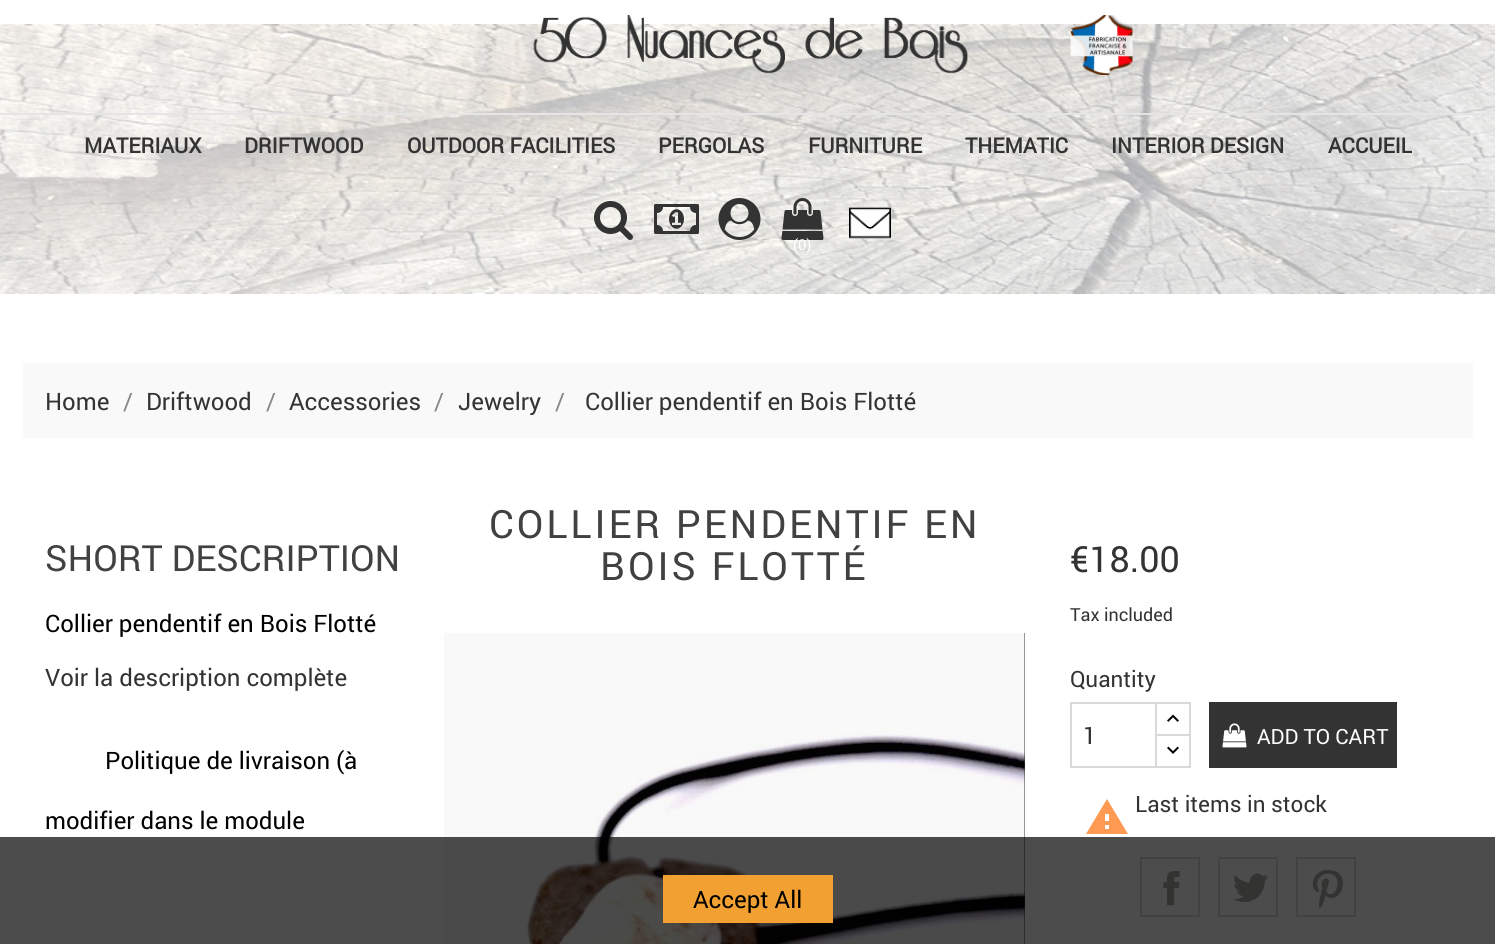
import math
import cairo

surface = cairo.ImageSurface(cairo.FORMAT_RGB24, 1495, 944)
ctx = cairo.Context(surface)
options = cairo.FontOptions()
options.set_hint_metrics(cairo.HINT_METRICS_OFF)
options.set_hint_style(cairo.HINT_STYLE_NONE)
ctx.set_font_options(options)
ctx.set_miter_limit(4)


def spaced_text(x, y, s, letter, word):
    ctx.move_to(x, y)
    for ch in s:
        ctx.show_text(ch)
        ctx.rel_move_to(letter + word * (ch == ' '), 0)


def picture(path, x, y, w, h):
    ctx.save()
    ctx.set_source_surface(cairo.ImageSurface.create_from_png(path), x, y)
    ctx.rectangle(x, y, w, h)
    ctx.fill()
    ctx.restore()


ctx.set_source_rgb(1, 1, 1)
ctx.paint()
picture("img1.png", 0, 24, 1495, 270)
picture("img2.png", 533, 15, 600, 60)
ctx.set_source_rgb(0.898, 0.898, 0.898)
ctx.rectangle(0, 113, 1495, 2)
ctx.fill()
ctx.select_font_face("Roboto", cairo.FONT_SLANT_NORMAL, cairo.FONT_WEIGHT_BOLD)
ctx.set_font_size(21)
ctx.set_source_rgb(0.2, 0.2, 0.2)
ctx.move_to(84, 153)
ctx.show_text("MATERIAUX")
ctx.move_to(244, 153)
ctx.show_text("DRIFTWOOD")
ctx.move_to(407, 153)
ctx.show_text("OUTDOOR FACILITIES")
ctx.move_to(658, 153)
ctx.show_text("PERGOLAS")
ctx.move_to(808, 153)
ctx.show_text("FURNITURE")
ctx.move_to(965, 153)
ctx.show_text("THEMATIC")
ctx.move_to(1111, 153)
ctx.show_text("INTERIOR DESIGN")
ctx.move_to(1328, 153)
ctx.show_text("ACCUEIL")
picture("img3.png", 594, 201, 39, 39)
picture("img4.png", 654, 204, 45, 30)
picture("img5.png", 718, 198, 43, 42)
picture("img6.png", 849, 207, 42, 32)
picture("img7.png", 781, 198, 43, 42)
ctx.select_font_face("Roboto")
ctx.set_font_size(15)
ctx.set_source_rgb(1, 1, 1)
ctx.move_to(793, 250)
ctx.show_text("(0)")
ctx.set_source_rgb(0.973, 0.973, 0.973)
ctx.rectangle(23, 363, 1450, 75)
ctx.fill()
ctx.set_font_size(24)
ctx.set_source_rgb(0.2, 0.2, 0.2)
ctx.move_to(45, 410)
ctx.show_text("Home")
ctx.set_source_rgb(0.529, 0.529, 0.529)
ctx.move_to(123, 410)
ctx.show_text("/")
ctx.set_source_rgb(0.2, 0.2, 0.2)
ctx.move_to(146, 410)
ctx.show_text("Driftwood")
ctx.set_source_rgb(0.529, 0.529, 0.529)
ctx.move_to(266, 410)
ctx.show_text("/")
ctx.set_source_rgb(0.2, 0.2, 0.2)
ctx.move_to(289, 410)
ctx.show_text("Accessories")
ctx.set_source_rgb(0.529, 0.529, 0.529)
ctx.move_to(434, 410)
ctx.show_text("/")
ctx.set_source_rgb(0.2, 0.2, 0.2)
ctx.move_to(458, 410)
ctx.show_text("Jewelry")
ctx.set_source_rgb(0.529, 0.529, 0.529)
ctx.move_to(555, 410)
ctx.show_text("/")
ctx.set_source_rgb(0.2, 0.2, 0.2)
ctx.move_to(585, 410)
ctx.show_text("Collier pendentif en Bois Flotté")
ctx.set_font_size(36)
ctx.set_source_rgb(0.255, 0.255, 0.255)
ctx.move_to(45, 571)
ctx.show_text("SHORT DESCRIPTION")
ctx.set_font_size(24)
ctx.set_source_rgb(0, 0, 0)
ctx.move_to(45, 632)
ctx.show_text("Collier pendentif en Bois Flotté")
ctx.set_source_rgb(0.2, 0.2, 0.2)
ctx.move_to(45, 686)
ctx.show_text("Voir la description complète")
ctx.set_source_rgb(0, 0, 0)
ctx.move_to(105, 769)
ctx.show_text("Politique de livraison (à")
ctx.move_to(45, 829)
ctx.show_text("modifier dans le module")
ctx.set_font_size(39)
ctx.set_source_rgb(0.255, 0.255, 0.255)
spaced_text(489, 538, "COLLIER PENDENTIF EN", 3, 0)
spaced_text(600, 580, "BOIS FLOTTÉ", 3, 0)
ctx.set_source_rgb(0.2, 0.2, 0.2)
ctx.rectangle(444, 633, 581, 311)
ctx.fill()
picture("img8.png", 444, 633, 581, 311)
ctx.set_font_size(36)
ctx.move_to(1070, 572)
ctx.show_text("€18.00")
ctx.set_font_size(18)
ctx.move_to(1070, 621)
ctx.show_text("Tax included")
ctx.set_font_size(22.5)
ctx.move_to(1070, 687)
ctx.show_text("Quantity")
ctx.rectangle(1156, 703, 34, 33)
ctx.set_source_rgb(0.851, 0.851, 0.851)
ctx.stroke()
ctx.set_source_rgb(1, 1, 1)
ctx.rectangle(1157, 736, 32, 1)
ctx.fill()
ctx.rectangle(1156, 735, 34, 32)
ctx.set_source_rgb(0.851, 0.851, 0.851)
ctx.stroke()
ctx.rectangle(1071, 703, 85, 64)
ctx.stroke()
ctx.set_font_size(24)
ctx.set_source_rgb(0.2, 0.2, 0.2)
ctx.move_to(1083, 744)
ctx.show_text("1")
picture("img9.png", 1167, 714, 12, 8)
picture("img10.png", 1167, 746, 12, 8)
ctx.rectangle(1209, 702, 188, 66)
ctx.fill()
picture("img11.png", 1222, 723, 25, 25)
ctx.set_font_size(21)
ctx.set_source_rgb(1, 1, 1)
ctx.move_to(1257, 744)
ctx.show_text("ADD TO CART")
ctx.set_source_rgb(1, 0.604, 0.322)
ctx.new_path()
ctx.move_to(1109, 821)
ctx.line_to(1109, 814)
ctx.line_to(1105, 814)
ctx.line_to(1105, 821)
ctx.close_path()
ctx.move_to(1109, 829)
ctx.line_to(1109, 825)
ctx.line_to(1105, 825)
ctx.line_to(1105, 829)
ctx.close_path()
ctx.move_to(1086, 834)
ctx.line_to(1107, 799)
ctx.line_to(1128, 834)
ctx.close_path()
ctx.fill()
ctx.set_font_size(22.5)
ctx.set_source_rgb(0.2, 0.2, 0.2)
ctx.move_to(1135, 812)
ctx.show_text("Last items in stock")
picture("img12.png", 1163, 871, 17, 35)
ctx.rectangle(1141, 858, 58, 58)
ctx.set_source_rgb(0.875, 0.875, 0.875)
ctx.stroke()
picture("img13.png", 1233, 873, 36, 29)
ctx.rectangle(1219, 858, 58, 58)
ctx.stroke()
picture("img14.png", 1312, 870, 31, 39)
ctx.rectangle(1297, 858, 58, 58)
ctx.stroke()
ctx.set_source_rgba(0, 0, 0, 0.7)
ctx.rectangle(0, 837, 1495, 107)
ctx.fill()
ctx.set_source_rgb(0.953, 0.627, 0.196)
ctx.rectangle(663, 875, 170, 48)
ctx.fill()
ctx.set_font_size(24)
ctx.set_source_rgb(0, 0, 0)
ctx.move_to(693, 908)
ctx.show_text("Accept All")
surface.write_to_png("page.png")
